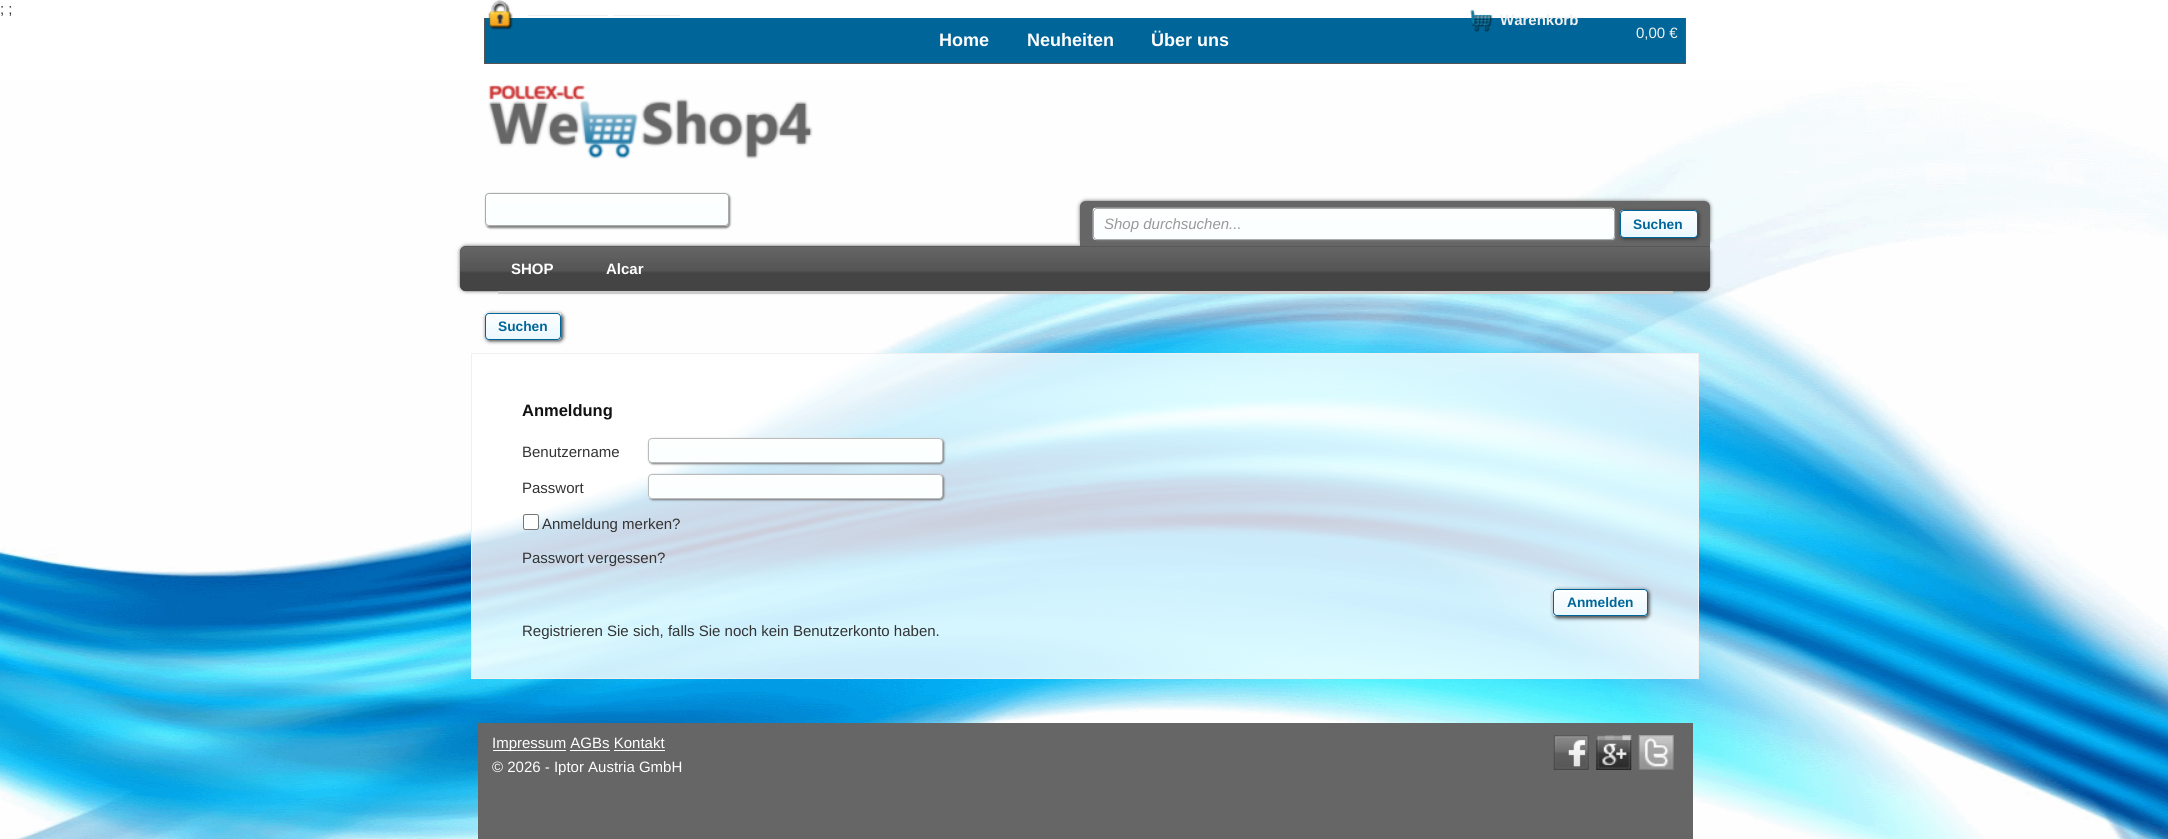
import math
import cairo

surface = cairo.ImageSurface(cairo.FORMAT_RGB24, 2168, 839)
ctx = cairo.Context(surface)
options = cairo.FontOptions()
options.set_hint_metrics(cairo.HINT_METRICS_OFF)
options.set_hint_style(cairo.HINT_STYLE_NONE)
ctx.set_font_options(options)
ctx.set_miter_limit(4)


def round_rect(x, y, w, h, r):
    ctx.new_sub_path()
    for i, (u, v) in enumerate([(x + w - r, y + h - r), (x + r, y + h - r), (x + r, y + r), (x + w - r, y + r)]):
        ctx.arc(u, v, r, i * math.pi / 2, (i + 1) * math.pi / 2)
    ctx.close_path()


def shadow(x, y, w, h, r, blur, alpha):
    ctx.push_group_with_content(cairo.CONTENT_ALPHA)
    ctx.set_operator(cairo.OPERATOR_SOURCE)
    for i in range(15, -16, -2):
        e = blur * i / 6
        if min(w, h) + 2 * e > 0:
            ctx.set_source_rgba(0, 0, 0, alpha * math.erfc((i - 1) / 8.5) / 2)
            round_rect(x - e, y - e, w + 2 * e, h + 2 * e, max(0, min(r + e + blur * .6, min(w, h) / 2 + e)))
            ctx.fill()
    ctx.mask(ctx.pop_group())


def picture(path, x, y, w, h):
    ctx.save()
    ctx.set_source_surface(cairo.ImageSurface.create_from_png(path), x, y)
    ctx.rectangle(x, y, w, h)
    ctx.fill()
    ctx.restore()


ctx.set_source_rgb(1, 1, 1)
ctx.paint()
picture("img1.png", 0, 81, 2168, 758)
ctx.select_font_face("Liberation Sans")
ctx.set_font_size(15)
ctx.set_source_rgb(0.2, 0.2, 0.2)
ctx.move_to(0, 14)
ctx.show_text("; ;")
ctx.set_source_rgb(0, 0.4, 0.6)
ctx.rectangle(485, 18, 1200, 45)
ctx.fill()
picture("img2.png", 488, 0, 25, 30)
ctx.set_source_rgb(0.941, 0.941, 0.941)
ctx.rectangle(528, 15, 80, 1)
ctx.fill()
ctx.rectangle(613, 15, 67, 1)
ctx.fill()
picture("img3.png", 1470, 9, 23, 23)
ctx.select_font_face("Liberation Sans", cairo.FONT_SLANT_NORMAL, cairo.FONT_WEIGHT_BOLD)
ctx.move_to(1500, 25)
ctx.show_text("Warenkorb")
ctx.select_font_face("Liberation Sans")
ctx.move_to(1636, 38)
ctx.show_text("0,00 €")
picture("img4.png", 488, 84, 325, 75)
ctx.set_source_rgb(0.467, 0.467, 0.467)
shadow(486, 194, 244, 34, 4, 1, 1)
picture("img5.png", 485, 193, 244, 34)
round_rect(485.5, 193.5, 243, 32, 3.5)
ctx.set_source_rgb(0.667, 0.667, 0.667)
ctx.set_line_width(1)
ctx.stroke()
ctx.set_source_rgb(0.4, 0.4, 0.4)
shadow(1080, 201, 630, 45, 6, 2, 1)
ctx.set_source_rgb(0.4, 0.4, 0.4)
ctx.new_path()
ctx.move_to(1086, 201)
ctx.line_to(1704, 201)
ctx.curve_to(1707.5, 201, 1710, 203.5, 1710, 207)
ctx.line_to(1710, 246)
ctx.line_to(1080, 246)
ctx.line_to(1080, 207)
ctx.curve_to(1080, 203.5, 1082.5, 201, 1086, 201)
ctx.close_path()
ctx.fill()
ctx.set_source_rgb(0.467, 0.467, 0.467)
shadow(1094, 209, 522, 32, 4, 1, 1)
picture("img6.png", 1092, 207, 523, 33)
round_rect(1093.5, 208.5, 521, 31, 3.5)
ctx.set_source_rgb(0.667, 0.667, 0.667)
ctx.stroke()
ctx.select_font_face("Liberation Sans", cairo.FONT_SLANT_ITALIC)
ctx.set_source_rgb(0.6, 0.6, 0.6)
ctx.move_to(1104, 229)
ctx.show_text("Shop durchsuchen...")
ctx.set_source_rgb(0.2, 0.2, 0.2)
shadow(1621, 211, 78, 28, 4, 2, 1)
picture("img7.png", 1620, 210, 78, 28)
round_rect(1620.5, 210.5, 77, 27, 3.5)
ctx.set_source_rgb(0, 0.4, 0.6)
ctx.stroke()
ctx.select_font_face("Liberation Sans", cairo.FONT_SLANT_NORMAL, cairo.FONT_WEIGHT_BOLD)
ctx.set_font_size(13.75)
ctx.move_to(1633, 229)
ctx.show_text("Suchen")
ctx.set_source_rgb(0.4, 0.4, 0.4)
shadow(460, 246, 1250, 45, 6, 2, 1)
ctx.set_source_rgb(0.267, 0.267, 0.267)
ctx.new_path()
ctx.move_to(466, 246)
ctx.line_to(1710, 246)
ctx.line_to(1710, 285)
ctx.curve_to(1710, 288.5, 1707.5, 291, 1704, 291)
ctx.line_to(466, 291)
ctx.curve_to(462.5, 291, 460, 288.5, 460, 285)
ctx.line_to(460, 252)
ctx.curve_to(460, 248.5, 462.5, 246, 466, 246)
ctx.close_path()
ctx.fill()
picture("img8.png", 460, 246, 1250, 46)
ctx.set_font_size(15)
ctx.set_source_rgb(1, 1, 1)
ctx.move_to(511, 274)
ctx.show_text("SHOP")
ctx.move_to(606, 274)
ctx.show_text("Alcar")
picture("img9.png", 497, 292, 1, 2)
ctx.set_source_rgb(0.8, 0.8, 0.8)
ctx.rectangle(498, 291, 1175, 3)
ctx.fill()
ctx.set_source_rgb(0.2, 0.2, 0.2)
shadow(486, 314, 77, 27, 4, 2, 1)
picture("img10.png", 485, 312, 77, 28)
round_rect(485.5, 313.5, 75, 26, 3.5)
ctx.set_source_rgb(0, 0.4, 0.6)
ctx.stroke()
ctx.set_font_size(13.75)
ctx.move_to(498, 331)
ctx.show_text("Suchen")
ctx.set_source_rgb(0.333, 0.333, 0.333)
ctx.rectangle(1685, 18, 1, 46)
ctx.fill()
ctx.rectangle(484, 63, 1202, 1)
ctx.fill()
ctx.rectangle(484, 18, 1, 46)
ctx.fill()
ctx.set_font_size(18)
ctx.set_source_rgb(1, 1, 1)
ctx.move_to(939, 46)
ctx.show_text("Home")
ctx.move_to(1027, 46)
ctx.show_text("Neuheiten")
ctx.move_to(1151, 46)
ctx.show_text("Über uns")
ctx.set_source_rgba(1, 1, 1, 0.8)
ctx.rectangle(471.5, 353.5, 1227, 325)
ctx.fill_preserve()
ctx.set_source_rgb(0.941, 0.941, 0.941)
ctx.stroke()
ctx.set_font_size(16.5)
ctx.set_source_rgb(0.067, 0.067, 0.067)
ctx.move_to(522, 416)
ctx.show_text("Anmeldung")
ctx.select_font_face("Liberation Sans")
ctx.set_font_size(15)
ctx.set_source_rgb(0.2, 0.2, 0.2)
ctx.move_to(522, 457)
ctx.show_text("Benutzername")
ctx.set_source_rgb(0.467, 0.467, 0.467)
shadow(649, 439, 295, 25, 4, 1, 1)
picture("img11.png", 648, 437, 295, 26)
round_rect(648.5, 438.5, 294, 24, 3.5)
ctx.set_source_rgb(0.733, 0.733, 0.733)
ctx.stroke()
ctx.set_source_rgb(0.2, 0.2, 0.2)
ctx.move_to(522, 493)
ctx.show_text("Passwort")
ctx.set_source_rgb(0.467, 0.467, 0.467)
shadow(649, 475, 295, 25, 4, 1, 1)
picture("img12.png", 647, 474, 296, 25)
round_rect(648.5, 474.5, 294, 24, 3.5)
ctx.set_source_rgb(0.733, 0.733, 0.733)
ctx.stroke()
ctx.set_source_rgb(1, 1, 1)
round_rect(523.5, 514.5, 15, 15, 2)
ctx.fill_preserve()
ctx.set_source_rgb(0.463, 0.463, 0.463)
ctx.stroke()
ctx.set_source_rgb(0.2, 0.2, 0.2)
ctx.move_to(542, 529)
ctx.show_text("Anmeldung merken?")
ctx.move_to(522, 563)
ctx.show_text("Passwort vergessen?")
ctx.set_source_rgb(0.2, 0.2, 0.2)
shadow(1554, 590, 95, 28, 4, 2, 1)
picture("img13.png", 1552, 588, 96, 29)
round_rect(1553.5, 589.5, 94, 26, 3.5)
ctx.set_source_rgb(0, 0.4, 0.6)
ctx.stroke()
ctx.select_font_face("Liberation Sans", cairo.FONT_SLANT_NORMAL, cairo.FONT_WEIGHT_BOLD)
ctx.set_font_size(13.75)
ctx.move_to(1567, 607)
ctx.show_text("Anmelden")
ctx.select_font_face("Liberation Sans")
ctx.set_font_size(15)
ctx.set_source_rgb(0.2, 0.2, 0.2)
ctx.move_to(522, 636)
ctx.show_text("Registrieren Sie sich, falls Sie noch kein Benutzerkonto haben.")
ctx.set_source_rgb(0.4, 0.4, 0.4)
ctx.rectangle(478, 723, 1215, 116)
ctx.fill()
ctx.set_source_rgb(1, 1, 1)
ctx.rectangle(493, 750, 73, 1)
ctx.fill()
ctx.move_to(492, 748)
ctx.show_text("Impressum AGBs Kontakt")
ctx.rectangle(570, 750, 40, 1)
ctx.fill()
ctx.rectangle(614, 750, 51, 1)
ctx.fill()
ctx.move_to(492, 772)
ctx.show_text("© 2026 - Iptor Austria GmbH")
picture("img14.png", 1553, 735, 36, 35)
picture("img15.png", 1596, 735, 36, 35)
picture("img16.png", 1638, 735, 36, 35)
surface.write_to_png("page.png")
